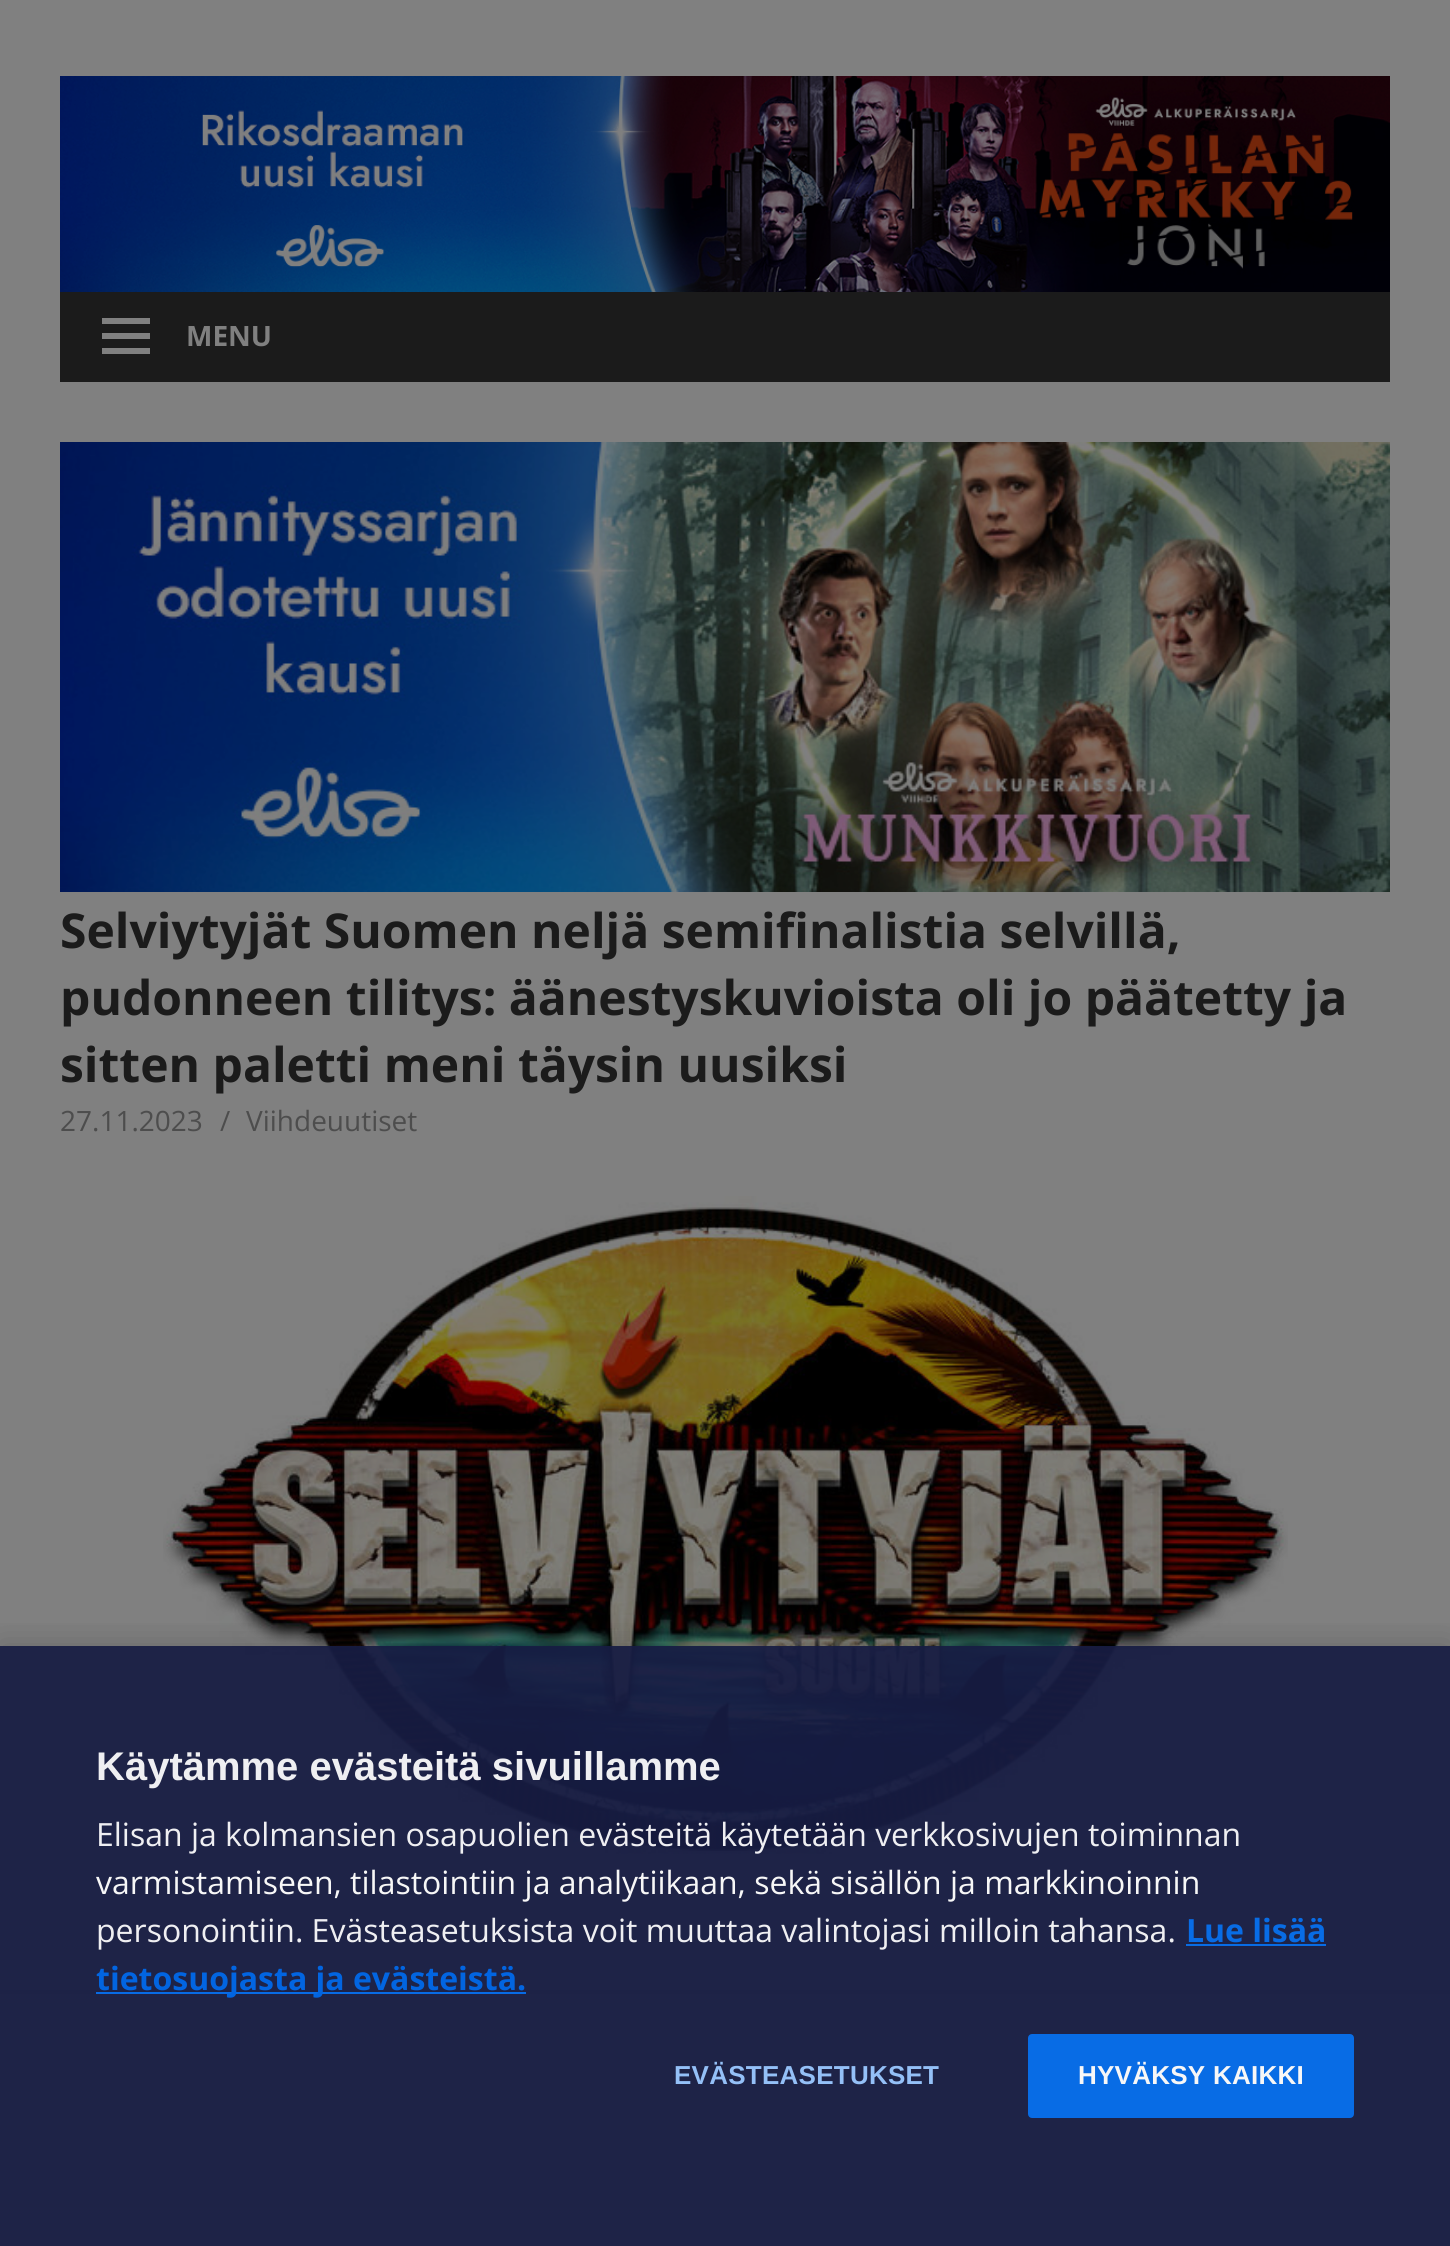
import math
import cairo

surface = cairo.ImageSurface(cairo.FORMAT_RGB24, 1450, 2246)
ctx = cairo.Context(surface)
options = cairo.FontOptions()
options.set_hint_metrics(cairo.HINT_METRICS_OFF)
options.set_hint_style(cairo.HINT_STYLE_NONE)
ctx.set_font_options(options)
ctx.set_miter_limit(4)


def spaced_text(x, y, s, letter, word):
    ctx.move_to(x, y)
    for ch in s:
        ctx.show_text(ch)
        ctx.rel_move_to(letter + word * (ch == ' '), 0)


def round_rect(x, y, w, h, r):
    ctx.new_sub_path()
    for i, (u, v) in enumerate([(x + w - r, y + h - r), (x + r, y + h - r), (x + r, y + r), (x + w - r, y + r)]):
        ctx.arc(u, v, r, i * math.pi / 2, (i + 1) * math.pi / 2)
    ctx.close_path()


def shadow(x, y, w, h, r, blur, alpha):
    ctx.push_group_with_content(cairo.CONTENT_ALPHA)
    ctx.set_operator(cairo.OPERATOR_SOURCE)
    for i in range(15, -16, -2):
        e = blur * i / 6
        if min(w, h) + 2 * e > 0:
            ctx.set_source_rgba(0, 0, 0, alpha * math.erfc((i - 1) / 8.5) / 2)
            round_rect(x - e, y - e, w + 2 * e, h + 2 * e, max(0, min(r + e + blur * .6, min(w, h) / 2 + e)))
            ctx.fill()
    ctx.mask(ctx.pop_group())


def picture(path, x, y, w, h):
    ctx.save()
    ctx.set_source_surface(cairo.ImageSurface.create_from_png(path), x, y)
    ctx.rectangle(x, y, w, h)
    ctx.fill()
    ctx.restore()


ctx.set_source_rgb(0.502, 0.502, 0.502)
ctx.paint()
ctx.save()
ctx.rectangle(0, 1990, 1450, 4)
ctx.clip()
ctx.set_source_rgb(0.4, 0.4, 0.4)
shadow(0, 0, 1450, 1990, 0, 2, 1)
ctx.restore()
picture("img1.png", 60, 76, 1330, 216)
ctx.set_source_rgb(0.106, 0.106, 0.106)
ctx.rectangle(60, 292, 1330, 90)
ctx.fill()
ctx.set_source_rgb(0.502, 0.502, 0.502)
ctx.new_path()
ctx.move_to(102, 354)
ctx.line_to(102, 348)
ctx.line_to(150, 348)
ctx.line_to(150, 354)
ctx.close_path()
ctx.move_to(102, 318)
ctx.line_to(150, 318)
ctx.line_to(150, 324)
ctx.line_to(102, 324)
ctx.close_path()
ctx.move_to(102, 339)
ctx.line_to(102, 333)
ctx.line_to(150, 333)
ctx.line_to(150, 339)
ctx.close_path()
ctx.fill()
ctx.select_font_face("Open Sans", cairo.FONT_SLANT_NORMAL, cairo.FONT_WEIGHT_BOLD)
ctx.set_font_size(28)
ctx.move_to(186, 346)
ctx.show_text("MENU")
picture("img2.png", 60, 442, 1330, 450)
ctx.set_font_size(48)
ctx.set_source_rgb(0.106, 0.106, 0.106)
ctx.move_to(60, 948)
ctx.show_text("Selviytyjät Suomen neljä semifinalistia selvillä,")
ctx.move_to(60, 1015)
ctx.show_text("pudonneen tilitys: äänestyskuvioista oli jo päätetty ja")
ctx.move_to(60, 1082)
ctx.show_text("sitten paletti meni täysin uusiksi")
ctx.select_font_face("Open Sans")
ctx.set_font_size(28)
ctx.set_source_rgb(0.302, 0.302, 0.302)
ctx.move_to(60, 1131)
ctx.show_text("27.11.2023")
ctx.move_to(220, 1131)
ctx.show_text("/")
ctx.move_to(246, 1131)
ctx.show_text("Viihdeuutiset")
picture("img3.png", 163, 1196, 1125, 658)
ctx.save()
ctx.rectangle(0, 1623, 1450, 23)
ctx.clip()
ctx.set_source_rgb(0, 0, 0)
shadow(0, 1646, 1450, 600, 0, 18, 0.19)
ctx.restore()
ctx.set_source_rgba(0.09, 0.11, 0.263, 0.93)
ctx.rectangle(0, 1646, 1450, 600)
ctx.fill()
ctx.select_font_face("Liberation Sans", cairo.FONT_SLANT_NORMAL, cairo.FONT_WEIGHT_BOLD)
ctx.set_font_size(40)
ctx.set_source_rgb(0.937, 0.937, 0.949)
ctx.move_to(96, 1780)
ctx.show_text("Käytämme evästeitä sivuillamme")
ctx.select_font_face("Open Sans")
ctx.set_font_size(32)
ctx.move_to(96, 1846)
ctx.show_text("Elisan ja kolmansien osapuolien evästeitä käytetään verkkosivujen toiminnan")
ctx.set_source_rgb(0.965, 0.965, 0.965)
ctx.move_to(96, 1894)
ctx.show_text("varmistamiseen, tilastointiin ja analytiikaan, sekä sisällön ja markkinoinnin")
ctx.set_source_rgb(0.937, 0.937, 0.949)
ctx.move_to(96, 1942)
ctx.show_text("personointiin. Evästeasetuksista voit muuttaa valintojasi milloin tahansa.")
ctx.select_font_face("Open Sans", cairo.FONT_SLANT_NORMAL, cairo.FONT_WEIGHT_BOLD)
ctx.set_source_rgb(0.035, 0.424, 0.898)
ctx.move_to(1186, 1942)
ctx.show_text("Lue lisää")
ctx.rectangle(1186, 1944, 140, 2)
ctx.fill()
ctx.set_source_rgb(0.035, 0.42, 0.898)
ctx.rectangle(96, 1992, 430, 2)
ctx.fill()
ctx.set_source_rgb(0.008, 0.396, 0.882)
ctx.move_to(96, 1990)
ctx.show_text("tietosuojasta ja evästeistä.")
ctx.select_font_face("Liberation Sans", cairo.FONT_SLANT_NORMAL, cairo.FONT_WEIGHT_BOLD)
ctx.set_font_size(26)
ctx.set_source_rgb(0.58, 0.753, 0.965)
spaced_text(674, 2084, "EVÄSTEASETUKSET", 0.25, 0)
ctx.set_source_rgb(0.035, 0.424, 0.898)
round_rect(1029, 2035, 324, 82, 3)
ctx.fill_preserve()
ctx.stroke()
ctx.set_source_rgb(0.965, 0.965, 0.965)
spaced_text(1078, 2084, "HYVÄKSY KAIKKI", 0.25, 0)
surface.write_to_png("page.png")
